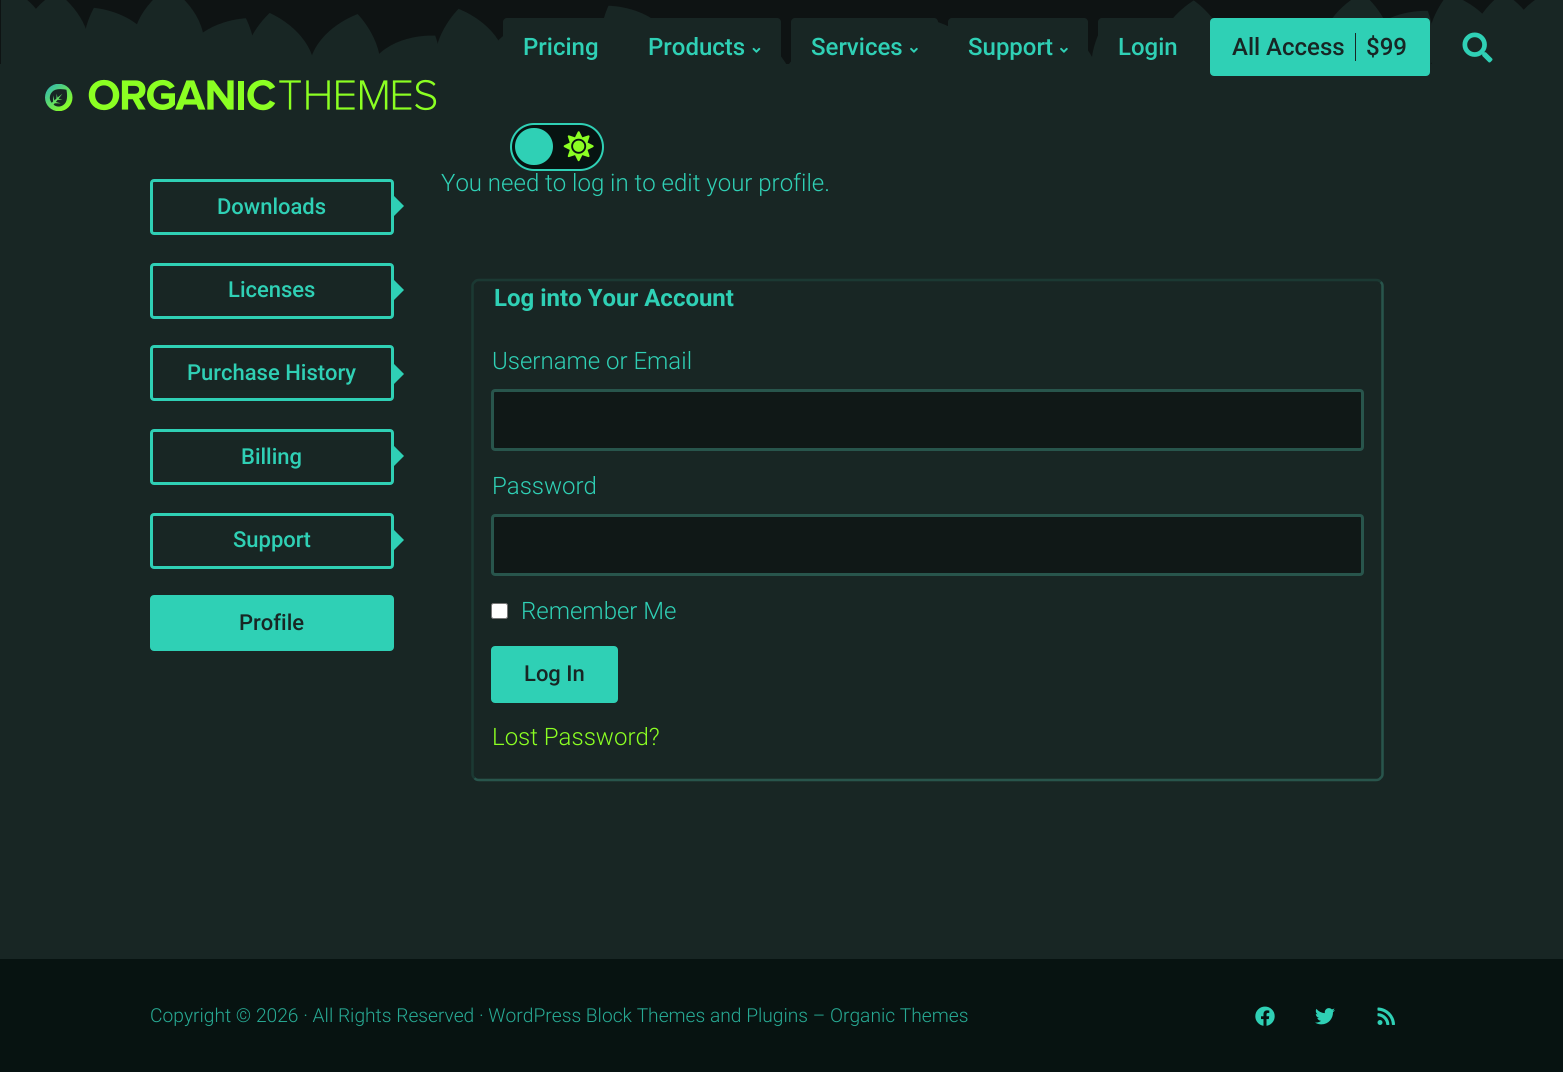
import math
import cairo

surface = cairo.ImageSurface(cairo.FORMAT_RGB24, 1563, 1072)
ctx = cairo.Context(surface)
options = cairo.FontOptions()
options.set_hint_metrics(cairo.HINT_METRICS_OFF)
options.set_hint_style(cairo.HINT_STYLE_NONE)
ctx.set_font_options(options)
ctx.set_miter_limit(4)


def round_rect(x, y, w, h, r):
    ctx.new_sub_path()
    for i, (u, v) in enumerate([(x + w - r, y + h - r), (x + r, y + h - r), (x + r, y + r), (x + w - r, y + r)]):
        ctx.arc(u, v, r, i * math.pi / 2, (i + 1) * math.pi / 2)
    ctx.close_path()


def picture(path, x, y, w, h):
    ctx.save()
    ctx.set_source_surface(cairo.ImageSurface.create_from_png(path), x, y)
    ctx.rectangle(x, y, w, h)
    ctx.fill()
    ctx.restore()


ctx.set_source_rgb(0.094, 0.149, 0.141)
ctx.paint()
ctx.set_source_rgb(0.055, 0.078, 0.078)
ctx.rectangle(0, 0, 1535, 64)
ctx.fill()
picture("img7.png", 1, 0, 1562, 64)
ctx.set_source_rgb(0.094, 0.149, 0.141)
round_rect(503, 18, 116, 58, 4)
ctx.fill()
ctx.select_font_face("Roboto Medium")
ctx.set_font_size(24)
ctx.set_source_rgb(0.184, 0.816, 0.71)
ctx.move_to(523, 55)
ctx.show_text("Pricing")
ctx.set_source_rgb(0.094, 0.149, 0.141)
round_rect(629, 18, 152, 58, 4)
ctx.fill()
ctx.set_source_rgb(0.184, 0.816, 0.71)
ctx.move_to(648, 55)
ctx.show_text("Products")
picture("img1.png", 752, 47, 9, 6)
ctx.set_source_rgb(0.094, 0.149, 0.141)
round_rect(791, 18, 147, 58, 4)
ctx.fill()
ctx.set_source_rgb(0.184, 0.816, 0.71)
ctx.move_to(811, 55)
ctx.show_text("Services")
picture("img2.png", 910, 47, 8, 6)
ctx.set_source_rgb(0.094, 0.149, 0.141)
round_rect(948, 18, 140, 58, 4)
ctx.fill()
ctx.set_source_rgb(0.184, 0.816, 0.71)
ctx.move_to(968, 55)
ctx.show_text("Support")
picture("img2.png", 1060, 47, 8, 6)
ctx.set_source_rgb(0.094, 0.149, 0.141)
round_rect(1098, 18, 100, 58, 4)
ctx.fill()
ctx.set_source_rgb(0.184, 0.816, 0.71)
ctx.move_to(1118, 55)
ctx.show_text("Login")
round_rect(1211.5, 19.5, 217, 55, 2.5)
ctx.fill_preserve()
ctx.set_line_width(3)
ctx.stroke()
ctx.set_source_rgb(0.094, 0.149, 0.141)
ctx.move_to(1232, 55)
ctx.show_text("All Access")
ctx.move_to(1366, 55)
ctx.show_text("$99")
ctx.rectangle(1355, 33, 1, 28)
ctx.fill()
picture("img3.png", 1462, 32, 31, 31)
ctx.set_source_rgb(0.031, 0.075, 0.067)
round_rect(511, 124, 92, 46, 23)
ctx.fill_preserve()
ctx.set_source_rgb(0.184, 0.816, 0.71)
ctx.set_line_width(2)
ctx.stroke()
round_rect(515, 128, 38, 37, 18.5)
ctx.fill()
picture("img4.png", 563, 131, 31, 31)
picture("img5.png", 45, 84, 28, 27)
picture("img6.png", 88, 79, 349, 32)
round_rect(151.5, 180.5, 241, 53, 2.5)
ctx.set_line_width(3)
ctx.stroke()
ctx.set_font_size(22)
ctx.move_to(217, 214)
ctx.show_text("Downloads")
ctx.new_path()
ctx.move_to(394, 216)
ctx.line_to(394, 196)
ctx.line_to(404, 206)
ctx.close_path()
ctx.fill()
round_rect(151.5, 264.5, 241, 53, 2.5)
ctx.stroke()
ctx.move_to(228, 297)
ctx.show_text("Licenses")
ctx.new_path()
ctx.move_to(394, 300)
ctx.line_to(394, 280)
ctx.line_to(404, 290)
ctx.close_path()
ctx.fill()
round_rect(151.5, 346.5, 241, 53, 2.5)
ctx.stroke()
ctx.move_to(187, 380)
ctx.show_text("Purchase History")
ctx.new_path()
ctx.move_to(394, 384)
ctx.line_to(394, 364)
ctx.line_to(404, 374)
ctx.close_path()
ctx.fill()
round_rect(151.5, 430.5, 241, 53, 2.5)
ctx.stroke()
ctx.move_to(241, 464)
ctx.show_text("Billing")
ctx.new_path()
ctx.move_to(394, 466)
ctx.line_to(394, 446)
ctx.line_to(404, 456)
ctx.close_path()
ctx.fill()
round_rect(151.5, 514.5, 241, 53, 2.5)
ctx.stroke()
ctx.move_to(233, 547)
ctx.show_text("Support")
ctx.new_path()
ctx.move_to(394, 550)
ctx.line_to(394, 530)
ctx.line_to(404, 540)
ctx.close_path()
ctx.fill()
round_rect(151.5, 596.5, 241, 53, 2.5)
ctx.fill_preserve()
ctx.stroke()
ctx.set_source_rgb(0.094, 0.149, 0.141)
ctx.move_to(239, 630)
ctx.show_text("Profile")
ctx.select_font_face("Roboto Light")
ctx.set_font_size(24)
ctx.set_source_rgb(0.184, 0.816, 0.71)
ctx.move_to(441, 191)
ctx.show_text("You need to log in to edit your profile.")
ctx.new_path()
ctx.move_to(1380.5, 282)
ctx.curve_to(1382, 283, 1382.5, 284.5, 1382.5, 286)
ctx.line_to(1382.5, 774)
ctx.curve_to(1382.5, 775.5, 1382, 777, 1380.5, 778)
ctx.curve_to(1379.5, 779.5, 1378, 780, 1376, 780)
ctx.line_to(479, 780)
ctx.curve_to(477, 780, 475.5, 779.5, 474.5, 778)
ctx.set_source_rgb(0.157, 0.333, 0.298)
ctx.set_line_width(2.5)
ctx.stroke()
ctx.new_path()
ctx.move_to(474.5, 778)
ctx.curve_to(473, 777, 472.5, 775.5, 472.5, 774)
ctx.line_to(472.5, 286)
ctx.curve_to(472.5, 284.5, 473, 283, 474.5, 282)
ctx.curve_to(475.5, 280.5, 477, 280, 479, 280)
ctx.line_to(1376, 280)
ctx.curve_to(1378, 280, 1379.5, 280.5, 1380.5, 282)
ctx.set_source_rgb(0.106, 0.224, 0.2)
ctx.stroke()
ctx.select_font_face("Roboto", cairo.FONT_SLANT_NORMAL, cairo.FONT_WEIGHT_BOLD)
ctx.set_source_rgb(0.184, 0.816, 0.71)
ctx.move_to(494, 306)
ctx.show_text("Log into Your Account")
ctx.select_font_face("Roboto Light")
ctx.move_to(492, 369)
ctx.show_text("Username or Email")
ctx.set_source_rgb(0.063, 0.094, 0.09)
round_rect(492.5, 390.5, 870, 59, 2.5)
ctx.fill_preserve()
ctx.set_source_rgb(0.157, 0.333, 0.298)
ctx.set_line_width(3)
ctx.stroke()
ctx.set_source_rgb(0.184, 0.816, 0.71)
ctx.move_to(492, 494)
ctx.show_text("Password")
ctx.set_source_rgb(0.063, 0.094, 0.09)
round_rect(492.5, 515.5, 870, 59, 2.5)
ctx.fill_preserve()
ctx.set_source_rgb(0.157, 0.333, 0.298)
ctx.stroke()
ctx.set_source_rgb(1, 1, 1)
round_rect(491.5, 603.5, 16, 15, 2)
ctx.fill_preserve()
ctx.set_source_rgb(0.463, 0.463, 0.463)
ctx.set_line_width(1)
ctx.stroke()
ctx.set_source_rgb(0.184, 0.816, 0.71)
ctx.move_to(521, 619)
ctx.show_text("Remember Me")
round_rect(492.5, 647.5, 124, 54, 2.5)
ctx.fill_preserve()
ctx.set_line_width(3)
ctx.stroke()
ctx.select_font_face("Roboto Medium")
ctx.set_font_size(22)
ctx.set_source_rgb(0.094, 0.149, 0.141)
ctx.move_to(524, 681)
ctx.show_text("Log In")
ctx.select_font_face("Roboto Light")
ctx.set_font_size(24)
ctx.set_source_rgb(0.545, 1, 0.133)
ctx.move_to(492, 745)
ctx.show_text("Lost Password?")
ctx.set_source_rgb(0.031, 0.075, 0.067)
ctx.rectangle(0, 959, 1563, 113)
ctx.fill()
ctx.set_font_size(19.2)
ctx.set_source_rgb(0.153, 0.667, 0.58)
ctx.move_to(150, 1022)
ctx.show_text("Copyright © 2026 · All Rights Reserved · WordPress Block Themes and Plugins – Organic Themes")
picture("img8.png", 1255, 1006, 20, 20)
picture("img9.png", 1315, 1008, 20, 17)
picture("img10.png", 1377, 1007, 18, 18)
surface.write_to_png("page.png")
